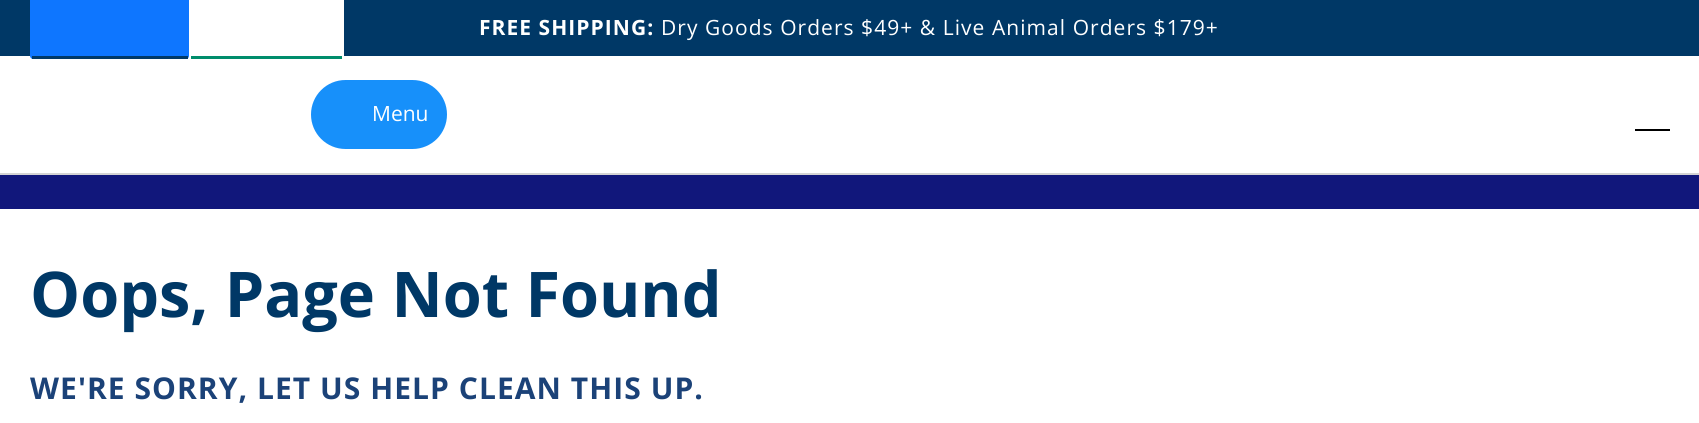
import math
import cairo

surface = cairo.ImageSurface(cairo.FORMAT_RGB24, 1699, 423)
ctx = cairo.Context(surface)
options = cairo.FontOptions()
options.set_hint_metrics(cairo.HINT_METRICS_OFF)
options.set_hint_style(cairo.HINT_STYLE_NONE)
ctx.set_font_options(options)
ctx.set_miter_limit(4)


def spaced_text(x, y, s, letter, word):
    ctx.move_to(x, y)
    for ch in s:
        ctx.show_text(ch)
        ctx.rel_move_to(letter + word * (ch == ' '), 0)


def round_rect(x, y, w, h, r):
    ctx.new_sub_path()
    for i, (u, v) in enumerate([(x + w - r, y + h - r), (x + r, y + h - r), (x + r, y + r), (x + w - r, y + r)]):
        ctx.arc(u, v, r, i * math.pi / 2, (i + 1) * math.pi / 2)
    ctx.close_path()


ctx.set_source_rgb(1, 1, 1)
ctx.paint()
ctx.set_source_rgb(0.831, 0.831, 0.831)
ctx.rectangle(0, 173, 1699, 2)
ctx.fill()
ctx.set_source_rgb(0, 0.22, 0.4)
ctx.rectangle(0, 0, 1699, 56)
ctx.fill()
ctx.set_source_rgb(0.055, 0.463, 1)
ctx.new_path()
ctx.move_to(30, 0)
ctx.line_to(189, 0)
ctx.line_to(189, 56)
ctx.curve_to(189, 57.5, 187.5, 59, 186, 59)
ctx.line_to(33, 59)
ctx.curve_to(31.5, 59, 30, 57.5, 30, 56)
ctx.close_path()
ctx.fill()
ctx.set_source_rgb(0, 0.224, 0.404)
ctx.rectangle(32, 56, 156, 3)
ctx.fill()
ctx.set_source_rgb(1, 1, 1)
ctx.new_path()
ctx.move_to(189, 0)
ctx.line_to(344, 0)
ctx.line_to(344, 56)
ctx.curve_to(344, 57.5, 342.5, 59, 341, 59)
ctx.line_to(192, 59)
ctx.curve_to(190.5, 59, 189, 57.5, 189, 56)
ctx.close_path()
ctx.fill()
ctx.set_source_rgb(0, 0.553, 0.424)
ctx.rectangle(191, 56, 151, 3)
ctx.fill()
ctx.select_font_face("Open Sans", cairo.FONT_SLANT_NORMAL, cairo.FONT_WEIGHT_BOLD)
ctx.set_font_size(21)
ctx.set_source_rgb(1, 1, 1)
spaced_text(479, 35, "FREE SHIPPING:", 1.05, 0)
ctx.select_font_face("Open Sans")
spaced_text(661, 35, "Dry Goods Orders $49+ & Live Animal Orders $179+", 1.05, 0)
ctx.set_source_rgb(0.09, 0.565, 0.98)
round_rect(311, 80, 136, 69, 34.5)
ctx.fill()
ctx.set_source_rgb(1, 1, 1)
ctx.move_to(372, 121)
ctx.show_text("Menu")
ctx.set_source_rgb(0, 0, 0)
ctx.rectangle(1635, 129, 35, 2)
ctx.fill()
ctx.set_source_rgb(0.067, 0.09, 0.482)
ctx.rectangle(0, 175, 1699, 34)
ctx.fill()
ctx.select_font_face("Open Sans", cairo.FONT_SLANT_NORMAL, cairo.FONT_WEIGHT_BOLD)
ctx.set_font_size(63)
ctx.set_source_rgb(0, 0.22, 0.4)
ctx.move_to(30, 317)
ctx.show_text("Oops, Page Not Found")
ctx.set_font_size(30)
ctx.set_source_rgb(0.106, 0.259, 0.471)
spaced_text(30, 399, "WE'RE SORRY, LET US HELP CLEAN THIS UP.", 1.05, 0)
surface.write_to_png("page.png")
